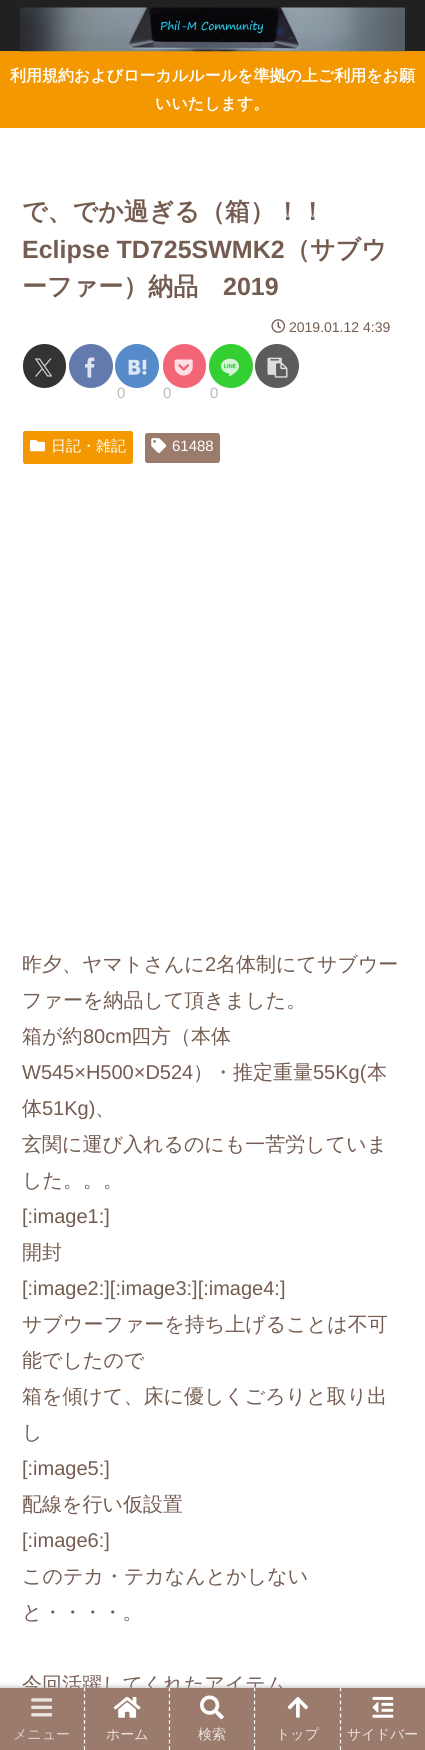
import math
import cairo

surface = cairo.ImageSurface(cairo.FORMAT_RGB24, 425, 1750)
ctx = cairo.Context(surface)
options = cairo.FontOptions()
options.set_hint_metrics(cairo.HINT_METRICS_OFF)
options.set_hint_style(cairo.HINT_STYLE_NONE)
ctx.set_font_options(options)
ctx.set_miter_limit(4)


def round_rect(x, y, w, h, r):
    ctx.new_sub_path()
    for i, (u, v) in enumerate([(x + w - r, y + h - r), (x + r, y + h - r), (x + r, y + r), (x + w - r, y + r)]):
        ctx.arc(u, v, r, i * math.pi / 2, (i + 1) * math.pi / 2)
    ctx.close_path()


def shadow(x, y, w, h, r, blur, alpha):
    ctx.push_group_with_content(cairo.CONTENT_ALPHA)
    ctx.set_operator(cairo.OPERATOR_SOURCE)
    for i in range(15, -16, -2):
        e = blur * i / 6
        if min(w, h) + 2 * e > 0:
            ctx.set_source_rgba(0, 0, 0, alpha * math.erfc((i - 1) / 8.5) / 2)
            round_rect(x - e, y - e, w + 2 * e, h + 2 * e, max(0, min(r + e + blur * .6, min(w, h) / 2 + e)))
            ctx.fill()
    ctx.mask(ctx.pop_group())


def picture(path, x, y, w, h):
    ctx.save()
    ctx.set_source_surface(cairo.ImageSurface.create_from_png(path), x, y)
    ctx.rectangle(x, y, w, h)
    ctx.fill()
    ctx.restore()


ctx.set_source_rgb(1, 1, 1)
ctx.paint()
ctx.set_source_rgb(0.129, 0.129, 0.129)
ctx.rectangle(0, 0, 425, 51)
ctx.fill()
ctx.set_source_rgb(0.953, 0.596, 0)
ctx.rectangle(0, 51, 425, 77)
ctx.fill()
picture("img1.png", 20, 7, 385, 45)
ctx.select_font_face("WenQuanYi Zen Hei", cairo.FONT_SLANT_NORMAL, cairo.FONT_WEIGHT_BOLD)
ctx.set_font_size(16)
ctx.set_source_rgb(1, 1, 1)
ctx.move_to(10, 81)
ctx.show_text("利用規約およびローカルルールを準拠の上ご利用をお願")
ctx.move_to(155, 109)
ctx.show_text("いいたします。")
ctx.set_font_size(25)
ctx.set_source_rgb(0.455, 0.361, 0.318)
ctx.move_to(22, 220)
ctx.show_text("で、でか過ぎる（箱）！！")
ctx.select_font_face("Liberation Sans", cairo.FONT_SLANT_NORMAL, cairo.FONT_WEIGHT_BOLD)
ctx.move_to(22, 258)
ctx.show_text("Eclipse TD725SWMK2")
ctx.select_font_face("WenQuanYi Zen Hei", cairo.FONT_SLANT_NORMAL, cairo.FONT_WEIGHT_BOLD)
ctx.move_to(285, 258)
ctx.show_text("（サブウ")
ctx.move_to(22, 295)
ctx.show_text("ーファー）納品")
ctx.select_font_face("Liberation Sans", cairo.FONT_SLANT_NORMAL, cairo.FONT_WEIGHT_BOLD)
ctx.move_to(223, 295)
ctx.show_text("2019")
picture("img2.png", 271, 319, 14, 14)
ctx.select_font_face("Liberation Sans")
ctx.set_font_size(14)
ctx.move_to(289, 332)
ctx.show_text("2019.01.12 4:39")
ctx.set_source_rgb(0.2, 0.2, 0.2)
round_rect(23, 344, 43, 44, 21.5)
ctx.fill()
picture("img3.png", 34, 358, 19, 19)
ctx.set_font_size(15)
ctx.set_source_rgb(0.733, 0.733, 0.733)
ctx.move_to(210, 398)
ctx.show_text("0")
ctx.set_source_rgb(0.2, 0.812, 0.2)
ctx.new_path()
ctx.arc(231, 366, 22, 0, 2 * math.pi)
ctx.fill()
picture("img4.png", 221, 358, 18, 19)
ctx.set_source_rgb(0.361, 0.361, 0.361)
ctx.arc(277, 366, 22, 0, 2 * math.pi)
ctx.fill()
picture("img5.png", 267, 357, 21, 21)
ctx.set_source_rgb(0.384, 0.478, 0.678)
ctx.arc(91, 366, 22, 0, 2 * math.pi)
ctx.fill()
picture("img6.png", 85, 357, 10, 21)
ctx.set_source_rgb(0.733, 0.733, 0.733)
ctx.move_to(117, 398)
ctx.show_text("0")
ctx.set_source_rgb(0.337, 0.545, 0.792)
ctx.new_path()
ctx.arc(137, 366, 22, 0, 2 * math.pi)
ctx.fill()
picture("img7.png", 128, 359, 19, 16)
ctx.set_source_rgb(0.733, 0.733, 0.733)
ctx.move_to(163, 398)
ctx.show_text("0")
ctx.set_source_rgb(0.949, 0.4, 0.471)
round_rect(163, 344, 43, 44, 21.5)
ctx.fill()
picture("img8.png", 174, 359, 19, 17)
ctx.set_source_rgb(0.953, 0.596, 0)
round_rect(23, 431, 110, 33, 2.5)
ctx.fill()
picture("img9.png", 30, 440, 15, 12)
ctx.select_font_face("WenQuanYi Zen Hei Medium")
ctx.set_source_rgb(1, 1, 1)
ctx.move_to(51, 451)
ctx.show_text("日記・雑記")
ctx.set_source_rgb(0.608, 0.482, 0.424)
round_rect(145, 433, 75, 30, 2.5)
ctx.fill()
picture("img10.png", 151, 438, 16, 16)
ctx.select_font_face("Liberation Sans")
ctx.set_source_rgb(1, 1, 1)
ctx.move_to(172, 451)
ctx.show_text("61488")
ctx.select_font_face("WenQuanYi Zen Hei Medium")
ctx.set_font_size(20)
ctx.set_source_rgb(0.455, 0.361, 0.318)
ctx.move_to(22, 971)
ctx.show_text("昨夕、ヤマトさんに")
ctx.select_font_face("Liberation Sans")
ctx.move_to(205, 971)
ctx.show_text("2")
ctx.select_font_face("WenQuanYi Zen Hei Medium")
ctx.move_to(216, 971)
ctx.show_text("名体制にてサブウー")
ctx.move_to(22, 1007)
ctx.show_text("ファーを納品して頂きました。")
ctx.move_to(22, 1043)
ctx.show_text("箱が約")
ctx.select_font_face("Liberation Sans")
ctx.move_to(83, 1043)
ctx.show_text("80cm")
ctx.select_font_face("WenQuanYi Zen Hei Medium")
ctx.move_to(131, 1043)
ctx.show_text("四方（本体")
ctx.select_font_face("Liberation Sans")
ctx.move_to(22, 1079)
ctx.show_text("W545×H500×D524")
ctx.select_font_face("WenQuanYi Zen Hei Medium")
ctx.move_to(193, 1079)
ctx.show_text("）・推定重量")
ctx.select_font_face("Liberation Sans")
ctx.move_to(313, 1079)
ctx.show_text("55Kg(")
ctx.select_font_face("WenQuanYi Zen Hei Medium")
ctx.move_to(367, 1079)
ctx.show_text("本")
ctx.move_to(22, 1115)
ctx.show_text("体")
ctx.select_font_face("Liberation Sans")
ctx.move_to(42, 1115)
ctx.show_text("51Kg)")
ctx.select_font_face("WenQuanYi Zen Hei Medium")
ctx.move_to(95, 1115)
ctx.show_text("、")
ctx.move_to(22, 1151)
ctx.show_text("玄関に運び入れるのにも一苦労していま")
ctx.move_to(22, 1187)
ctx.show_text("した。。。")
ctx.select_font_face("Liberation Sans")
ctx.move_to(22, 1223)
ctx.show_text("[:image1:]")
ctx.select_font_face("WenQuanYi Zen Hei Medium")
ctx.move_to(22, 1259)
ctx.show_text("開封")
ctx.select_font_face("Liberation Sans")
ctx.move_to(22, 1295)
ctx.show_text("[:image2:][:image3:][:image4:]")
ctx.select_font_face("WenQuanYi Zen Hei Medium")
ctx.move_to(22, 1331)
ctx.show_text("サブウーファーを持ち上げることは不可")
ctx.move_to(22, 1367)
ctx.show_text("能でしたので")
ctx.move_to(22, 1403)
ctx.show_text("箱を傾けて、床に優しくごろりと取り出")
ctx.move_to(22, 1439)
ctx.show_text("し")
ctx.select_font_face("Liberation Sans")
ctx.move_to(22, 1475)
ctx.show_text("[:image5:]")
ctx.select_font_face("WenQuanYi Zen Hei Medium")
ctx.move_to(22, 1511)
ctx.show_text("配線を行い仮設置")
ctx.select_font_face("Liberation Sans")
ctx.move_to(22, 1547)
ctx.show_text("[:image6:]")
ctx.select_font_face("WenQuanYi Zen Hei Medium")
ctx.move_to(22, 1583)
ctx.show_text("このテカ・テカなんとかしない")
ctx.move_to(22, 1619)
ctx.show_text("と・・・・。")
ctx.move_to(22, 1691)
ctx.show_text("今回活躍してくれたアイテム")
ctx.set_source_rgb(0.663, 0.663, 0.663)
shadow(0, 1688, 425, 62, 0, 3, 1)
ctx.set_source_rgb(0.608, 0.482, 0.424)
ctx.rectangle(0, 1688, 425, 62)
ctx.fill()
ctx.new_path()
ctx.move_to(84.5, 1687.5)
ctx.line_to(84.5, 1750)
ctx.set_source_rgb(1, 1, 1)
ctx.set_line_width(1.2)
ctx.set_dash([3.75, 2.78])
ctx.stroke()
picture("img11.png", 31, 1698, 21, 19)
ctx.set_font_size(14)
ctx.set_source_rgb(0.859, 0.812, 0.792)
ctx.move_to(13, 1739)
ctx.show_text("メニュー")
ctx.new_path()
ctx.move_to(169.5, 1687.5)
ctx.line_to(169.5, 1750)
ctx.set_source_rgb(1, 1, 1)
ctx.stroke()
picture("img12.png", 113, 1696, 28, 22)
ctx.set_source_rgb(0.922, 0.898, 0.886)
ctx.move_to(106, 1739)
ctx.show_text("ホーム")
ctx.new_path()
ctx.move_to(254.5, 1687.5)
ctx.line_to(254.5, 1750)
ctx.set_source_rgb(1, 1, 1)
ctx.stroke()
picture("img13.png", 200, 1695, 24, 25)
ctx.set_source_rgb(0.922, 0.898, 0.886)
ctx.move_to(198, 1739)
ctx.show_text("検索")
ctx.new_path()
ctx.move_to(340.5, 1687.5)
ctx.line_to(340.5, 1750)
ctx.set_source_rgb(1, 1, 1)
ctx.stroke()
picture("img14.png", 287, 1697, 21, 21)
ctx.set_source_rgb(0.922, 0.898, 0.886)
ctx.move_to(276, 1739)
ctx.show_text("トップ")
picture("img15.png", 372, 1696, 22, 22)
ctx.move_to(347, 1739)
ctx.show_text("サイドバー")
surface.write_to_png("page.png")
